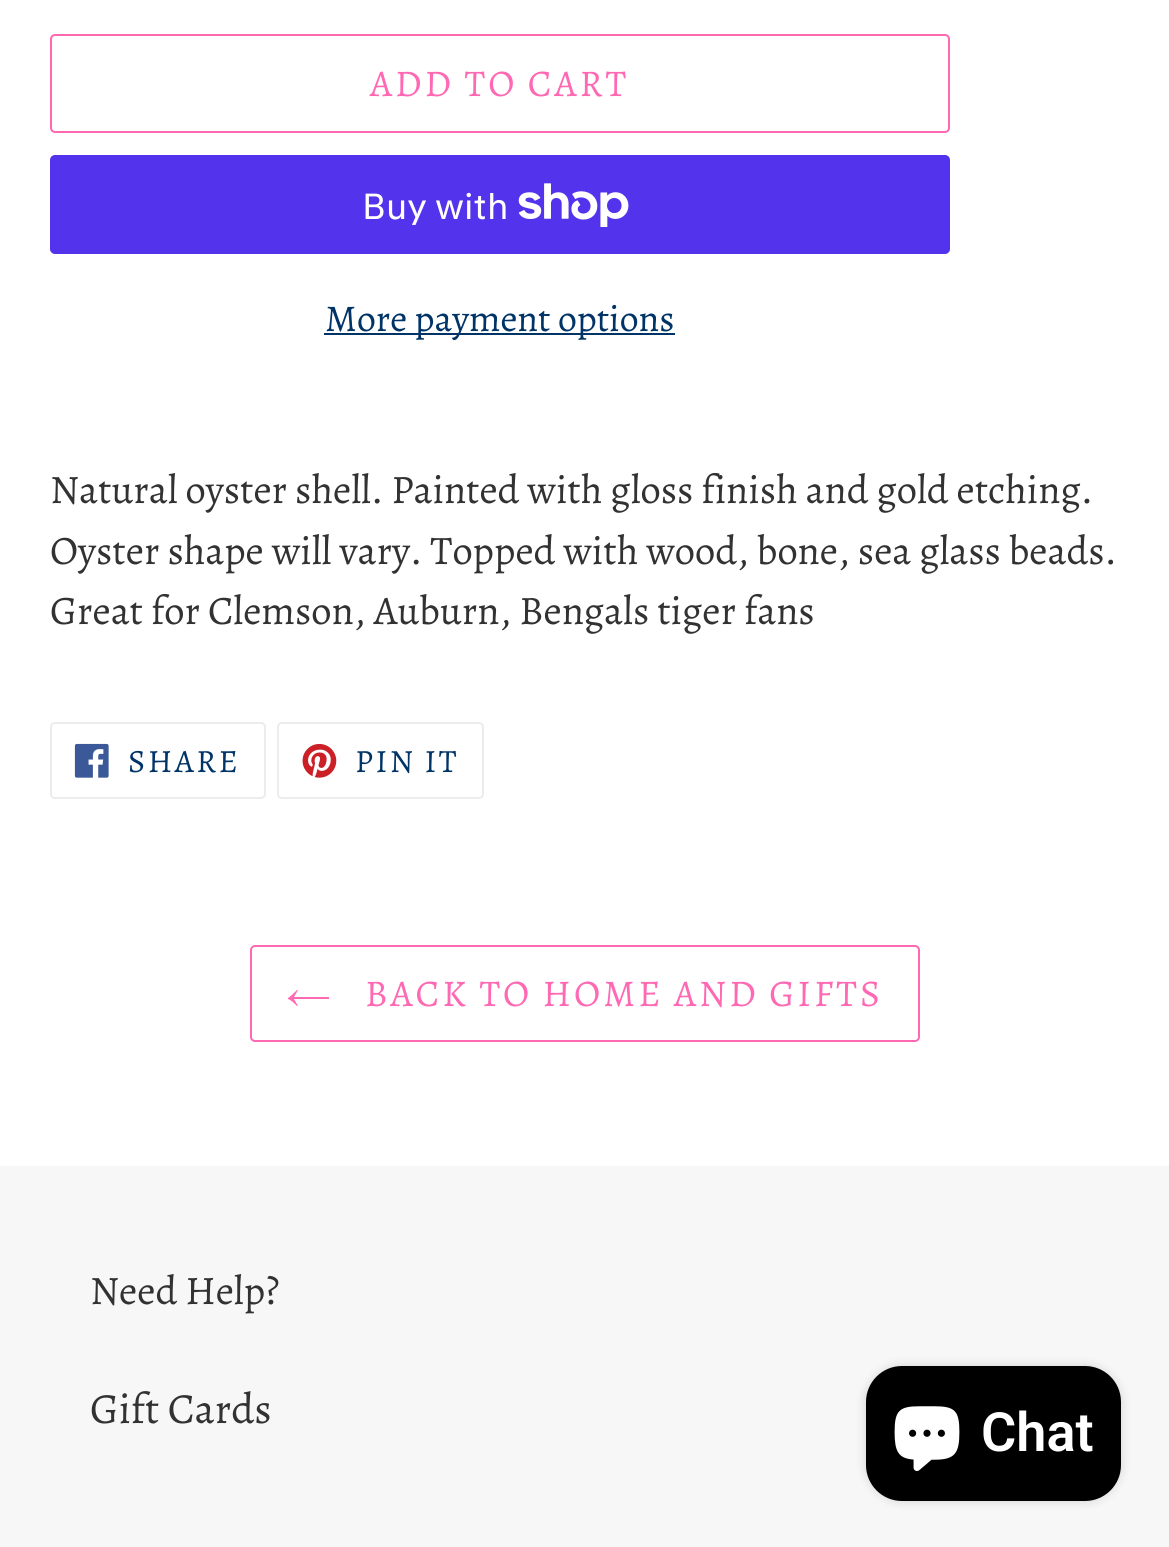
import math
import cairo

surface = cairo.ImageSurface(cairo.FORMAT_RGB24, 1169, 1547)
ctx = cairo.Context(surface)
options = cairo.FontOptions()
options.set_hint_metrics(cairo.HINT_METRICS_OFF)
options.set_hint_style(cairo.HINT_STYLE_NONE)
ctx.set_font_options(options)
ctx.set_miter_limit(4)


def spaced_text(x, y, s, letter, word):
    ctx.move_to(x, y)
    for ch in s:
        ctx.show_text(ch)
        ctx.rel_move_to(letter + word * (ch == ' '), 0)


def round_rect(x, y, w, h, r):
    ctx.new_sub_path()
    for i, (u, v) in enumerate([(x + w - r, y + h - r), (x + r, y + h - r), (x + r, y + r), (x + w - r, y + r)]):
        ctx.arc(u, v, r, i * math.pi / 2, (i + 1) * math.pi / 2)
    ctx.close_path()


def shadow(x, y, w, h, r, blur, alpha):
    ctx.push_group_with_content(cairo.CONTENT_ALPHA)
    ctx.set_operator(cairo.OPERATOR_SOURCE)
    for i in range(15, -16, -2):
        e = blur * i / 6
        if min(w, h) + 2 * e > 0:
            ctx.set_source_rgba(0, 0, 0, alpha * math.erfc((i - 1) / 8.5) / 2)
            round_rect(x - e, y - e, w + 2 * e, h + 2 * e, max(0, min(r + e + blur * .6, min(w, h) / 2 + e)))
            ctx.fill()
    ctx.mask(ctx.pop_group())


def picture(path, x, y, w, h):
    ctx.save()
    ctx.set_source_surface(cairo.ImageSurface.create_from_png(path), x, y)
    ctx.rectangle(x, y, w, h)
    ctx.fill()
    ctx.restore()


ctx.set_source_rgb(1, 1, 1)
ctx.paint()
round_rect(51, 35, 898, 97, 4)
ctx.set_source_rgb(1, 0.412, 0.706)
ctx.stroke()
ctx.select_font_face("Alegreya")
ctx.set_font_size(37.75)
spaced_text(370, 96, "ADD TO CART", 3, 0)
ctx.set_source_rgb(0.329, 0.2, 0.922)
round_rect(50, 155, 900, 99, 5)
ctx.fill()
ctx.select_font_face("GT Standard")
ctx.set_font_size(36)
ctx.set_source_rgb(1, 1, 1)
ctx.move_to(362, 219)
ctx.show_text("Buy with")
picture("img1.png", 518, 183, 111, 44)
ctx.set_source_rgb(0, 0.2, 0.4)
ctx.rectangle(324, 333, 351, 2)
ctx.fill()
ctx.select_font_face("Alegreya")
ctx.set_font_size(37.75)
ctx.move_to(325, 331)
ctx.show_text("More payment options")
ctx.set_font_size(40.5)
ctx.set_source_rgb(0.2, 0.196, 0.196)
ctx.move_to(50, 503)
ctx.show_text("Natural oyster shell. Painted with gloss finish and gold etching.")
ctx.move_to(50, 564)
ctx.show_text("Oyster shape will vary. Topped with wood, bone, sea glass beads.")
ctx.move_to(50, 624)
ctx.show_text("Great for Clemson, Auburn, Bengals tiger fans")
round_rect(51, 723, 214, 75, 4)
ctx.set_source_rgb(0.922, 0.922, 0.922)
ctx.stroke()
picture("img2.png", 74, 743, 35, 35)
ctx.set_font_size(32.5)
ctx.set_source_rgb(0, 0.2, 0.4)
spaced_text(128, 772, "SHARE", 2.5, 0)
round_rect(278, 723, 205, 75, 4)
ctx.set_source_rgb(0.922, 0.922, 0.922)
ctx.stroke()
picture("img3.png", 302, 743, 35, 35)
ctx.set_source_rgb(0, 0.2, 0.4)
spaced_text(355, 772, "PIN IT", 2.5, 0)
round_rect(251, 946, 668, 95, 4)
ctx.set_source_rgb(1, 0.412, 0.706)
ctx.stroke()
ctx.set_fill_rule(cairo.FILL_RULE_EVEN_ODD)
ctx.new_path()
ctx.move_to(297, 1006)
ctx.curve_to(294, 1003, 291, 1000, 288, 999)
ctx.line_to(288, 998)
ctx.curve_to(291, 996, 294, 993, 297, 990)
ctx.line_to(298, 990)
ctx.line_to(294, 997)
ctx.line_to(329, 997)
ctx.line_to(329, 999)
ctx.line_to(294, 999)
ctx.line_to(298, 1006)
ctx.close_path()
ctx.fill()
ctx.set_font_size(37.75)
spaced_text(365, 1006, "BACK TO HOME AND GIFTS", 3, 0)
ctx.set_source_rgb(0.965, 0.965, 0.965)
ctx.rectangle(0, 1166, 1169, 381)
ctx.fill()
ctx.set_font_size(40.5)
ctx.set_source_rgb(0.2, 0.196, 0.196)
ctx.move_to(90, 1304)
ctx.show_text("Need Help?")
ctx.set_font_size(43)
ctx.move_to(90, 1423)
ctx.show_text("Gift Cards")
ctx.set_source_rgb(0, 0, 0)
shadow(866, 1366, 255, 135, 36, 5.5, 0.15)
ctx.set_source_rgb(0, 0, 0)
round_rect(866, 1366, 255, 135, 36)
ctx.fill()
picture("img4.png", 894, 1406, 66, 65)
ctx.select_font_face("Roboto SemiBold")
ctx.set_font_size(54)
ctx.set_source_rgb(1, 1, 1)
ctx.move_to(981, 1451)
ctx.show_text("Chat")
surface.write_to_png("page.png")
